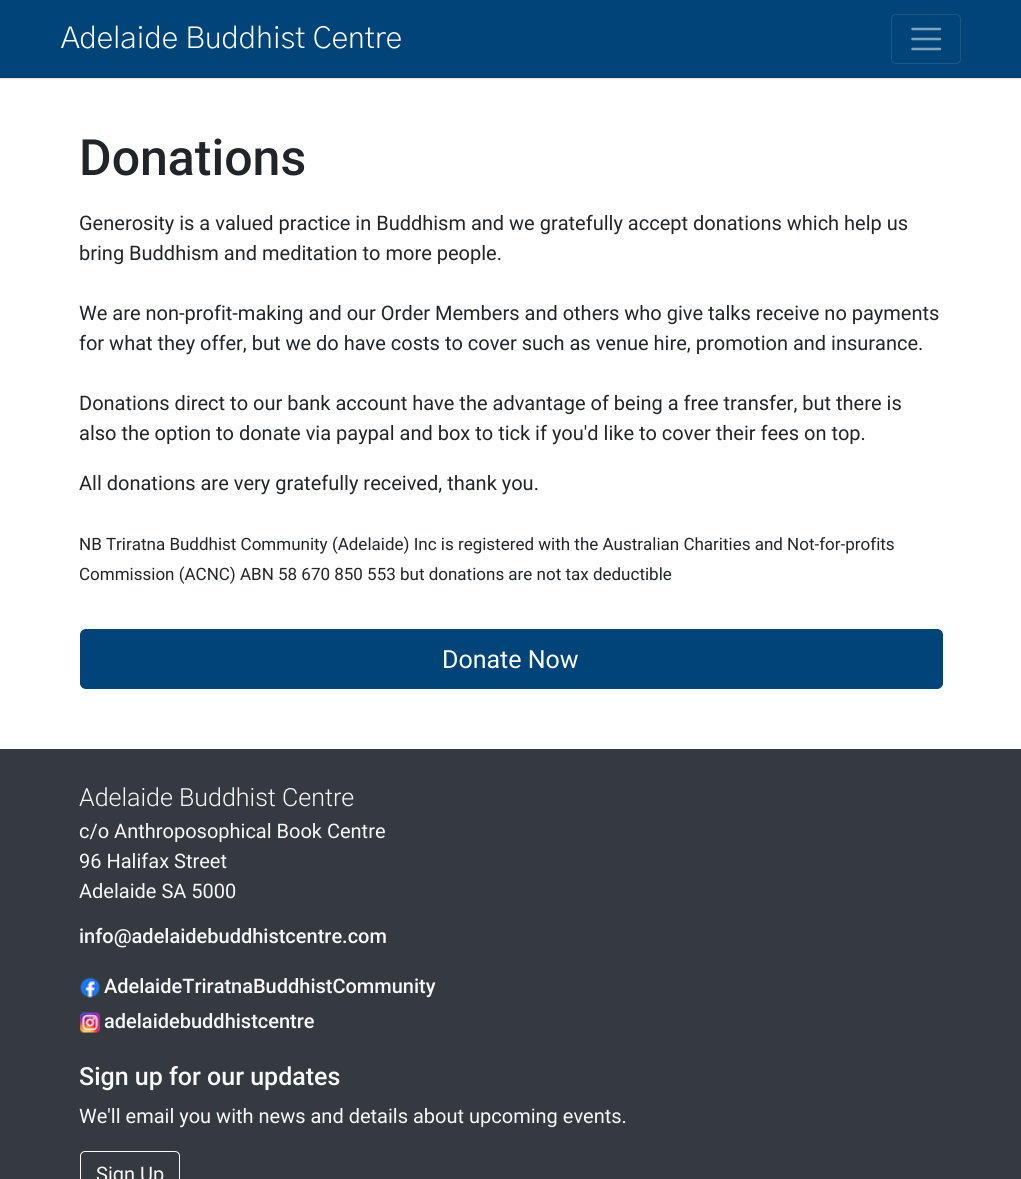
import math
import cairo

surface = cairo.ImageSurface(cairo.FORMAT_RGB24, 1021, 1179)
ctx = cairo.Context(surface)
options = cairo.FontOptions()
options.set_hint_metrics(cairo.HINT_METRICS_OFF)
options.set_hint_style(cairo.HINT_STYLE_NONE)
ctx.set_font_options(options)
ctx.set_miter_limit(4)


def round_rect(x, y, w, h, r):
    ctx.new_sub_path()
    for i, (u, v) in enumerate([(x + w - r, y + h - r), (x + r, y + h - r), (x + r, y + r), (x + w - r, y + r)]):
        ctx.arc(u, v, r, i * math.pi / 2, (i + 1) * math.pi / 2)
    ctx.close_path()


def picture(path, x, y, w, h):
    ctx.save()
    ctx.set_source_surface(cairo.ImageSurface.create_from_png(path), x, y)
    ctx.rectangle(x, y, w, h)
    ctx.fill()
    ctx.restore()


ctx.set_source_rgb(1, 1, 1)
ctx.paint()
ctx.set_source_rgb(0.871, 0.886, 0.902)
ctx.rectangle(0, 78, 1021, 1)
ctx.fill()
ctx.set_source_rgb(0, 0.267, 0.478)
ctx.rectangle(0, 0, 1021, 78)
ctx.fill()
ctx.select_font_face("Gothic A1 Light")
ctx.set_font_size(30)
ctx.set_source_rgb(1, 1, 1)
ctx.move_to(61, 48)
ctx.show_text("Adelaide Buddhist Centre")
round_rect(891.5, 14.5, 69, 49, 4.5)
ctx.set_source_rgb(0.102, 0.341, 0.529)
ctx.set_line_width(1)
ctx.stroke()
ctx.new_path()
ctx.move_to(912.5, 29)
ctx.line_to(940, 29)
ctx.move_to(912.5, 39)
ctx.line_to(940, 39)
ctx.move_to(912.5, 49)
ctx.line_to(940, 49)
ctx.set_source_rgb(0.502, 0.635, 0.741)
ctx.set_line_width(2.5)
ctx.set_line_cap(cairo.LINE_CAP_ROUND)
ctx.stroke()
ctx.select_font_face("Roboto Medium")
ctx.set_font_size(50)
ctx.set_source_rgb(0.129, 0.145, 0.161)
ctx.move_to(79, 175)
ctx.show_text("Donations")
ctx.select_font_face("Roboto")
ctx.set_font_size(20)
ctx.move_to(79, 230)
ctx.show_text("Generosity is a valued practice in Buddhism and we gratefully accept donations which help us")
ctx.move_to(79, 260)
ctx.show_text("bring Buddhism and meditation to more people.")
ctx.move_to(79, 320)
ctx.show_text("We are non-profit-making and our Order Members and others who give talks receive no payments")
ctx.move_to(79, 350)
ctx.show_text("for what they offer, but we do have costs to cover such as venue hire, promotion and insurance.")
ctx.move_to(79, 410)
ctx.show_text("Donations direct to our bank account have the advantage of being a free transfer, but there is")
ctx.move_to(79, 440)
ctx.show_text("also the option to donate via paypal and box to tick if you'd like to cover their fees on top.")
ctx.move_to(79, 490)
ctx.show_text("All donations are very gratefully received, thank you.")
ctx.set_font_size(17)
ctx.move_to(79, 550)
ctx.show_text("NB Triratna Buddhist Community (Adelaide) Inc is registered with the Australian Charities and Not-for-profits")
ctx.move_to(79, 580)
ctx.show_text("Commission (ACNC) ABN 58 670 850 553 but donations are not tax deductible")
ctx.set_source_rgb(0, 0.267, 0.478)
round_rect(80.5, 629.5, 862, 59, 5.5)
ctx.fill_preserve()
ctx.set_line_width(1)
ctx.set_line_cap(cairo.LINE_CAP_BUTT)
ctx.stroke()
ctx.set_font_size(25)
ctx.set_source_rgb(1, 1, 1)
ctx.move_to(442, 668)
ctx.show_text("Donate Now")
ctx.set_source_rgb(0.204, 0.227, 0.251)
ctx.rectangle(0, 749, 1021, 430)
ctx.fill()
ctx.select_font_face("Roboto Light")
ctx.set_source_rgb(0.973, 0.976, 0.98)
ctx.move_to(79, 806)
ctx.show_text("Adelaide Buddhist Centre")
ctx.select_font_face("Roboto")
ctx.set_font_size(20)
ctx.move_to(79, 838)
ctx.show_text("c/o Anthroposophical Book Centre")
ctx.move_to(79, 868)
ctx.show_text("96 Halifax Street")
ctx.move_to(79, 898)
ctx.show_text("Adelaide SA 5000")
ctx.select_font_face("Roboto Medium")
ctx.move_to(79, 943)
ctx.show_text("info@adelaidebuddhistcentre.com")
picture("img1.png", 80, 977, 20, 21)
ctx.move_to(104, 993)
ctx.show_text("AdelaideTriratnaBuddhistCommunity")
picture("img2.png", 80, 1012, 20, 21)
ctx.move_to(104, 1028)
ctx.show_text("adelaidebuddhistcentre")
ctx.set_font_size(25)
ctx.move_to(79, 1085)
ctx.show_text("Sign up for our updates")
ctx.select_font_face("Roboto")
ctx.set_font_size(20)
ctx.move_to(79, 1123)
ctx.show_text("We'll email you with news and details about upcoming events.")
round_rect(80.5, 1151.5, 99, 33, 4.5)
ctx.stroke()
ctx.move_to(96, 1181)
ctx.show_text("Sign Up")
surface.write_to_png("page.png")
